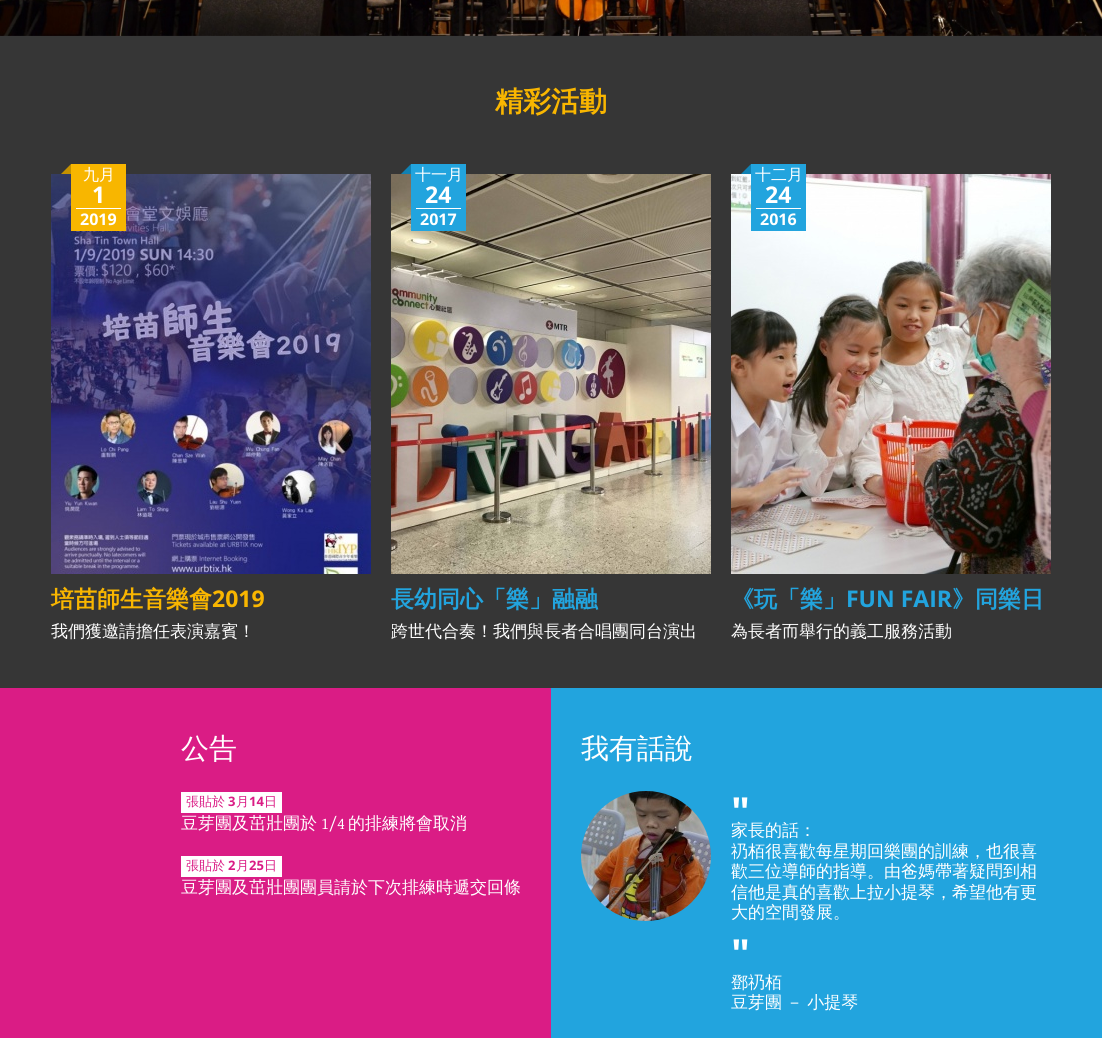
import math
import cairo

surface = cairo.ImageSurface(cairo.FORMAT_RGB24, 1102, 1038)
ctx = cairo.Context(surface)
options = cairo.FontOptions()
options.set_hint_metrics(cairo.HINT_METRICS_OFF)
options.set_hint_style(cairo.HINT_STYLE_NONE)
ctx.set_font_options(options)
ctx.set_miter_limit(4)


def spaced_text(x, y, s, letter, word):
    ctx.move_to(x, y)
    for ch in s:
        ctx.show_text(ch)
        ctx.rel_move_to(letter + word * (ch == ' '), 0)


def picture(path, x, y, w, h):
    ctx.save()
    ctx.set_source_surface(cairo.ImageSurface.create_from_png(path), x, y)
    ctx.rectangle(x, y, w, h)
    ctx.fill()
    ctx.restore()


ctx.set_source_rgb(0.212, 0.212, 0.212)
ctx.paint()
picture("img1.png", 0, 0, 1102, 36)
ctx.select_font_face("WenQuanYi Zen Hei", cairo.FONT_SLANT_NORMAL, cairo.FONT_WEIGHT_BOLD)
ctx.set_font_size(28)
ctx.set_source_rgb(0.973, 0.714, 0)
ctx.move_to(495, 111)
ctx.show_text("精彩活動")
picture("img3.png", 51, 174, 320, 400)
picture("img2.png", 61, 164, 65, 67)
ctx.select_font_face("WenQuanYi Zen Hei Medium")
ctx.set_font_size(16)
ctx.set_source_rgb(1, 1, 1)
ctx.move_to(83, 180)
ctx.show_text("九月")
ctx.rectangle(76, 208, 45, 1)
ctx.fill()
ctx.select_font_face("Open Sans", cairo.FONT_SLANT_NORMAL, cairo.FONT_WEIGHT_BOLD)
ctx.set_font_size(23)
ctx.move_to(92, 203)
ctx.show_text("1")
ctx.set_font_size(16)
ctx.move_to(80, 225)
ctx.show_text("2019")
ctx.select_font_face("WenQuanYi Zen Hei", cairo.FONT_SLANT_NORMAL, cairo.FONT_WEIGHT_BOLD)
ctx.set_font_size(23)
ctx.set_source_rgb(0.973, 0.714, 0)
ctx.move_to(51, 607)
ctx.show_text("培苗師生音樂會")
ctx.select_font_face("Open Sans", cairo.FONT_SLANT_NORMAL, cairo.FONT_WEIGHT_BOLD)
ctx.move_to(212, 607)
ctx.show_text("2019")
ctx.select_font_face("WenQuanYi Zen Hei Medium")
ctx.set_font_size(17)
ctx.set_source_rgb(1, 1, 1)
ctx.move_to(51, 637)
ctx.show_text("我們獲邀請擔任表演嘉賓！")
picture("img5.png", 391, 174, 320, 400)
picture("img4.png", 401, 164, 65, 67)
ctx.set_font_size(16)
ctx.move_to(415, 180)
ctx.show_text("十一月")
ctx.rectangle(416, 208, 45, 1)
ctx.fill()
ctx.select_font_face("Open Sans", cairo.FONT_SLANT_NORMAL, cairo.FONT_WEIGHT_BOLD)
ctx.set_font_size(23)
ctx.move_to(425, 203)
ctx.show_text("24")
ctx.set_font_size(16)
ctx.move_to(420, 225)
ctx.show_text("2017")
ctx.select_font_face("WenQuanYi Zen Hei", cairo.FONT_SLANT_NORMAL, cairo.FONT_WEIGHT_BOLD)
ctx.set_font_size(23)
ctx.set_source_rgb(0.133, 0.643, 0.871)
ctx.move_to(391, 607)
ctx.show_text("長幼同心「樂」融融")
ctx.select_font_face("WenQuanYi Zen Hei Medium")
ctx.set_font_size(17)
ctx.set_source_rgb(1, 1, 1)
ctx.move_to(391, 637)
ctx.show_text("跨世代合奏！我們與長者合唱團同台演出")
picture("img7.png", 731, 174, 320, 400)
picture("img6.png", 741, 164, 65, 67)
ctx.set_font_size(16)
ctx.move_to(755, 180)
ctx.show_text("十二月")
ctx.rectangle(756, 208, 45, 1)
ctx.fill()
ctx.select_font_face("Open Sans", cairo.FONT_SLANT_NORMAL, cairo.FONT_WEIGHT_BOLD)
ctx.set_font_size(23)
ctx.move_to(765, 203)
ctx.show_text("24")
ctx.set_font_size(16)
ctx.move_to(760, 225)
ctx.show_text("2016")
ctx.select_font_face("WenQuanYi Zen Hei", cairo.FONT_SLANT_NORMAL, cairo.FONT_WEIGHT_BOLD)
ctx.set_font_size(23)
ctx.set_source_rgb(0.133, 0.643, 0.871)
ctx.move_to(731, 607)
ctx.show_text("《玩「樂」")
ctx.select_font_face("Open Sans", cairo.FONT_SLANT_NORMAL, cairo.FONT_WEIGHT_BOLD)
ctx.move_to(846, 607)
ctx.show_text("FUN FAIR")
ctx.select_font_face("WenQuanYi Zen Hei", cairo.FONT_SLANT_NORMAL, cairo.FONT_WEIGHT_BOLD)
ctx.move_to(952, 607)
ctx.show_text("》同樂日")
ctx.select_font_face("WenQuanYi Zen Hei Medium")
ctx.set_font_size(17)
ctx.set_source_rgb(1, 1, 1)
ctx.move_to(731, 637)
ctx.show_text("為長者而舉行的義工服務活動")
ctx.set_source_rgb(0.855, 0.11, 0.522)
ctx.rectangle(0, 688, 551, 350)
ctx.fill()
ctx.set_font_size(28)
ctx.set_source_rgb(1, 1, 1)
ctx.move_to(181, 758)
ctx.show_text("公告")
ctx.rectangle(181, 792, 101, 21)
ctx.fill()
ctx.set_font_size(13)
ctx.set_source_rgb(0.855, 0.11, 0.522)
ctx.move_to(186, 806)
ctx.show_text("張貼於")
ctx.select_font_face("Open Sans", cairo.FONT_SLANT_NORMAL, cairo.FONT_WEIGHT_BOLD)
ctx.move_to(228, 806)
ctx.show_text("3")
ctx.select_font_face("WenQuanYi Zen Hei Medium")
ctx.move_to(236, 806)
ctx.show_text("月")
ctx.select_font_face("Open Sans", cairo.FONT_SLANT_NORMAL, cairo.FONT_WEIGHT_BOLD)
ctx.move_to(249, 806)
ctx.show_text("14")
ctx.select_font_face("WenQuanYi Zen Hei Medium")
ctx.move_to(264, 806)
ctx.show_text("日")
ctx.set_font_size(17)
ctx.set_source_rgb(1, 1, 1)
ctx.move_to(181, 829)
ctx.show_text("豆芽團及茁壯團於")
ctx.select_font_face("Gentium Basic")
ctx.move_to(321, 829)
ctx.show_text("1/4")
ctx.select_font_face("WenQuanYi Zen Hei Medium")
ctx.move_to(348, 829)
ctx.show_text("的排練將會取消")
ctx.rectangle(181, 856, 101, 21)
ctx.fill()
ctx.set_font_size(13)
ctx.set_source_rgb(0.855, 0.11, 0.522)
ctx.move_to(186, 870)
ctx.show_text("張貼於")
ctx.select_font_face("Open Sans", cairo.FONT_SLANT_NORMAL, cairo.FONT_WEIGHT_BOLD)
ctx.move_to(228, 870)
ctx.show_text("2")
ctx.select_font_face("WenQuanYi Zen Hei Medium")
ctx.move_to(236, 870)
ctx.show_text("月")
ctx.select_font_face("Open Sans", cairo.FONT_SLANT_NORMAL, cairo.FONT_WEIGHT_BOLD)
ctx.move_to(249, 870)
ctx.show_text("25")
ctx.select_font_face("WenQuanYi Zen Hei Medium")
ctx.move_to(264, 870)
ctx.show_text("日")
ctx.set_font_size(17)
ctx.set_source_rgb(1, 1, 1)
ctx.move_to(181, 893)
ctx.show_text("豆芽團及茁壯團團員請於下次排練時遞交回條")
ctx.set_source_rgb(0.133, 0.643, 0.871)
ctx.rectangle(551, 688, 551, 350)
ctx.fill()
ctx.set_font_size(28)
ctx.set_source_rgb(1, 1, 1)
ctx.move_to(581, 758)
ctx.show_text("我有話說")
picture("img8.png", 581, 791, 130, 130)
ctx.select_font_face("Open Sans", cairo.FONT_SLANT_NORMAL, cairo.FONT_WEIGHT_BOLD)
ctx.set_font_size(40)
ctx.move_to(731, 826)
ctx.show_text("\"")
ctx.select_font_face("WenQuanYi Zen Hei Medium")
ctx.set_font_size(17)
ctx.move_to(731, 836)
ctx.show_text("家長的話：")
ctx.move_to(731, 857)
ctx.show_text("礽栢很喜歡每星期回樂團的訓練，也很喜")
ctx.move_to(731, 877)
ctx.show_text("歡三位導師的指導。由爸媽帶著疑問到相")
ctx.move_to(731, 898)
ctx.show_text("信他是真的喜歡上拉小提琴，希望他有更")
ctx.move_to(731, 918)
ctx.show_text("大的空間發展。")
ctx.select_font_face("Open Sans", cairo.FONT_SLANT_NORMAL, cairo.FONT_WEIGHT_BOLD)
ctx.set_font_size(40)
ctx.move_to(731, 968)
ctx.show_text("\"")
ctx.select_font_face("WenQuanYi Zen Hei Medium")
ctx.set_font_size(17)
ctx.move_to(731, 988)
ctx.show_text("鄧礽栢")
spaced_text(731, 1008, "豆芽團 － 小提琴", 0, -1)
surface.write_to_png("page.png")
